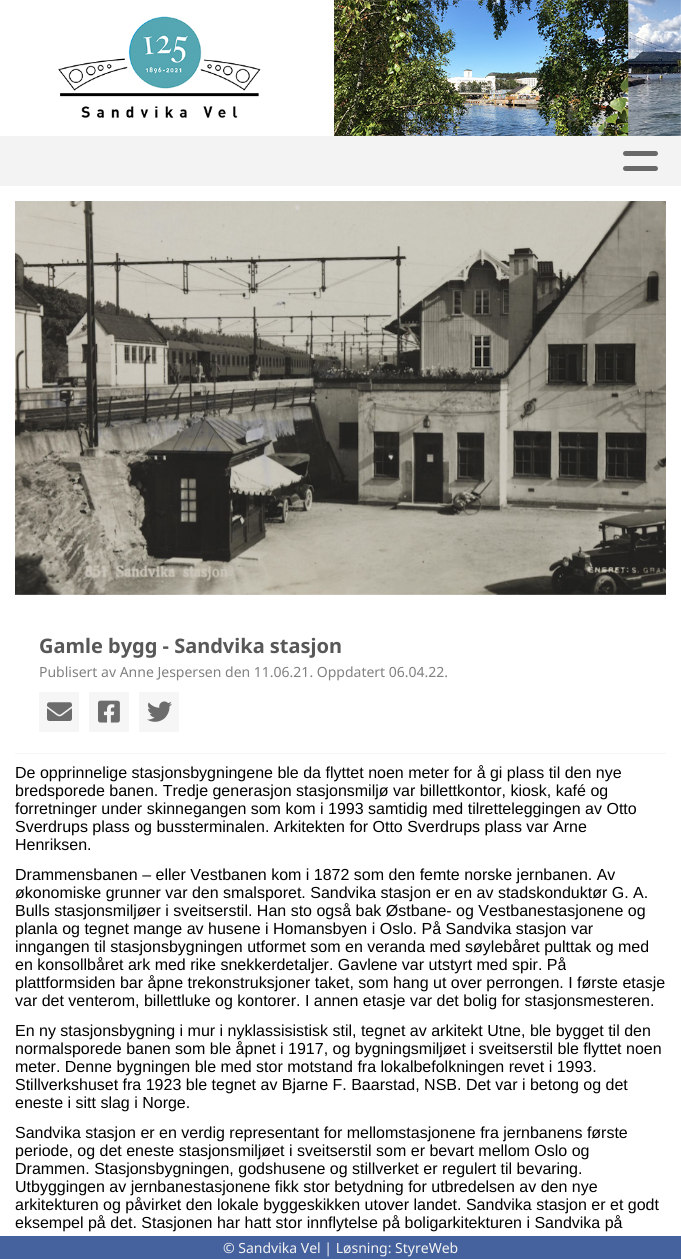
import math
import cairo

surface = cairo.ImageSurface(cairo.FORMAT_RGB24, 681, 1259)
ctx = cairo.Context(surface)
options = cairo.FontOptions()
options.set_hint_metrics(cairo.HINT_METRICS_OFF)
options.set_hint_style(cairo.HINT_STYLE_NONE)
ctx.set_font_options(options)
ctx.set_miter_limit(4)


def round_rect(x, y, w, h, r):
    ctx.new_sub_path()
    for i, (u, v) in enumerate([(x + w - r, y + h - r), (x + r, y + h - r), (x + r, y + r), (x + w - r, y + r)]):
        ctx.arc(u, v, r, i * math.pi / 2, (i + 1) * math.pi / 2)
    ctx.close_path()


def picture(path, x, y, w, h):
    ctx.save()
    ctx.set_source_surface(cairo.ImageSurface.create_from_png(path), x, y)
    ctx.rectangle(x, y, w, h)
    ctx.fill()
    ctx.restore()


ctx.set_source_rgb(1, 1, 1)
ctx.paint()
picture("img1.png", 58, 0, 623, 136)
ctx.set_source_rgb(0.953, 0.953, 0.953)
ctx.rectangle(0, 136, 681, 50)
ctx.fill()
ctx.set_source_rgb(0.412, 0.412, 0.412)
round_rect(623, 151, 35, 5, 2.5)
ctx.fill()
round_rect(623, 166, 35, 5, 2.5)
ctx.fill()
picture("img2.png", 15, 201, 651, 394)
ctx.set_source_rgb(0.961, 0.961, 0.961)
ctx.rectangle(15, 753, 651, 1)
ctx.fill()
ctx.select_font_face("Noto Sans", cairo.FONT_SLANT_NORMAL, cairo.FONT_WEIGHT_BOLD)
ctx.set_font_size(20)
ctx.set_source_rgb(0.345, 0.345, 0.345)
ctx.move_to(39, 653)
ctx.show_text("Gamle bygg - Sandvika stasjon")
ctx.select_font_face("Noto Sans")
ctx.set_font_size(14)
ctx.set_source_rgb(0.502, 0.502, 0.502)
ctx.move_to(39, 677)
ctx.show_text("Publisert av Anne Jespersen den 11.06.21. Oppdatert 06.04.22.")
ctx.set_source_rgb(0.961, 0.961, 0.961)
ctx.rectangle(39, 692, 40, 40)
ctx.fill()
picture("img3.png", 47, 702, 25, 19)
ctx.rectangle(89, 692, 40, 40)
ctx.fill()
picture("img4.png", 98, 700, 22, 23)
ctx.rectangle(139, 692, 40, 40)
ctx.fill()
picture("img5.png", 147, 701, 25, 21)
ctx.select_font_face("Liberation Sans")
ctx.set_font_size(16)
ctx.set_source_rgb(0, 0, 0)
ctx.move_to(15, 778)
ctx.show_text("De opprinnelige stasjonsbygningene ble da flyttet noen meter for å gi plass til den nye")
ctx.move_to(15, 796)
ctx.show_text("bredsporede banen. Tredje generasjon stasjonsmiljø var billettkontor, kiosk, kafé og")
ctx.move_to(15, 814)
ctx.show_text("forretninger under skinnegangen som kom i 1993 samtidig med tilretteleggingen av Otto")
ctx.move_to(15, 832)
ctx.show_text("Sverdrups plass og bussterminalen. Arkitekten for Otto Sverdrups plass var Arne")
ctx.move_to(15, 850)
ctx.show_text("Henriksen.")
ctx.move_to(15, 880)
ctx.show_text("Drammensbanen – eller Vestbanen kom i 1872 som den femte norske jernbanen. Av")
ctx.move_to(15, 898)
ctx.show_text("økonomiske grunner var den smalsporet. Sandvika stasjon er en av stadskonduktør G. A.")
ctx.move_to(15, 916)
ctx.show_text("Bulls stasjonsmiljøer i sveitserstil. Han sto også bak Østbane- og Vestbanestasjonene og")
ctx.move_to(15, 934)
ctx.show_text("planla og tegnet mange av husene i Homansbyen i Oslo. På Sandvika stasjon var")
ctx.move_to(15, 952)
ctx.show_text("inngangen til stasjonsbygningen utformet som en veranda med søylebåret pulttak og med")
ctx.move_to(15, 970)
ctx.show_text("en konsollbåret ark med rike snekkerdetaljer. Gavlene var utstyrt med spir. På")
ctx.move_to(15, 988)
ctx.show_text("plattformsiden bar åpne trekonstruksjoner taket, som hang ut over perrongen. I første etasje")
ctx.move_to(15, 1006)
ctx.show_text("var det venterom, billettluke og kontorer. I annen etasje var det bolig for stasjonsmesteren.")
ctx.move_to(15, 1036)
ctx.show_text("En ny stasjonsbygning i mur i nyklassisistisk stil, tegnet av arkitekt Utne, ble bygget til den")
ctx.move_to(15, 1054)
ctx.show_text("normalsporede banen som ble åpnet i 1917, og bygningsmiljøet i sveitserstil ble flyttet noen")
ctx.move_to(15, 1072)
ctx.show_text("meter. Denne bygningen ble med stor motstand fra lokalbefolkningen revet i 1993.")
ctx.move_to(15, 1090)
ctx.show_text("Stillverkshuset fra 1923 ble tegnet av Bjarne F. Baarstad, NSB. Det var i betong og det")
ctx.move_to(15, 1108)
ctx.show_text("eneste i sitt slag i Norge.")
ctx.move_to(15, 1138)
ctx.show_text("Sandvika stasjon er en verdig representant for mellomstasjonene fra jernbanens første")
ctx.move_to(15, 1156)
ctx.show_text("periode, og det eneste stasjonsmiljøet i sveitserstil som er bevart mellom Oslo og")
ctx.move_to(15, 1174)
ctx.show_text("Drammen. Stasjonsbygningen, godshusene og stillverket er regulert til bevaring.")
ctx.move_to(15, 1192)
ctx.show_text("Utbyggingen av jernbanestasjonene fikk stor betydning for utbredelsen av den nye")
ctx.move_to(15, 1210)
ctx.show_text("arkitekturen og påvirket den lokale byggeskikken utover landet. Sandvika stasjon er et godt")
ctx.move_to(15, 1228)
ctx.show_text("eksempel på det. Stasjonen har hatt stor innflytelse på boligarkitekturen i Sandvika på")
ctx.set_source_rgb(0.275, 0.384, 0.62)
ctx.rectangle(0, 1236, 681, 23)
ctx.fill()
ctx.select_font_face("Noto Sans")
ctx.set_font_size(14)
ctx.set_source_rgb(0.953, 0.953, 0.953)
ctx.move_to(223, 1253)
ctx.show_text("© Sandvika Vel | Løsning: StyreWeb")
surface.write_to_png("page.png")
